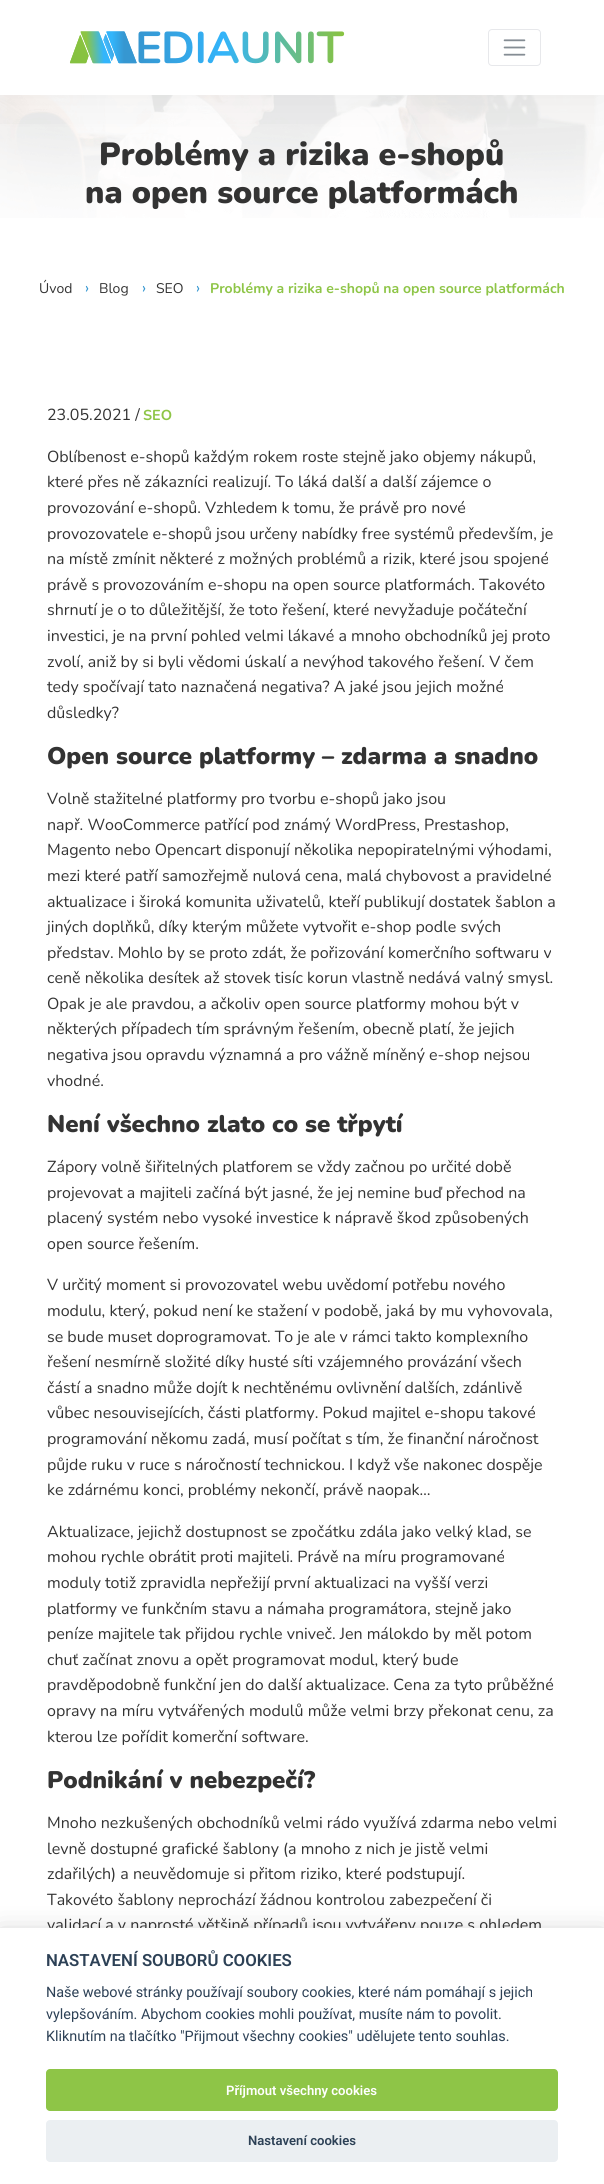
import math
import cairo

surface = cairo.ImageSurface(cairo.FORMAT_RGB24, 604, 2184)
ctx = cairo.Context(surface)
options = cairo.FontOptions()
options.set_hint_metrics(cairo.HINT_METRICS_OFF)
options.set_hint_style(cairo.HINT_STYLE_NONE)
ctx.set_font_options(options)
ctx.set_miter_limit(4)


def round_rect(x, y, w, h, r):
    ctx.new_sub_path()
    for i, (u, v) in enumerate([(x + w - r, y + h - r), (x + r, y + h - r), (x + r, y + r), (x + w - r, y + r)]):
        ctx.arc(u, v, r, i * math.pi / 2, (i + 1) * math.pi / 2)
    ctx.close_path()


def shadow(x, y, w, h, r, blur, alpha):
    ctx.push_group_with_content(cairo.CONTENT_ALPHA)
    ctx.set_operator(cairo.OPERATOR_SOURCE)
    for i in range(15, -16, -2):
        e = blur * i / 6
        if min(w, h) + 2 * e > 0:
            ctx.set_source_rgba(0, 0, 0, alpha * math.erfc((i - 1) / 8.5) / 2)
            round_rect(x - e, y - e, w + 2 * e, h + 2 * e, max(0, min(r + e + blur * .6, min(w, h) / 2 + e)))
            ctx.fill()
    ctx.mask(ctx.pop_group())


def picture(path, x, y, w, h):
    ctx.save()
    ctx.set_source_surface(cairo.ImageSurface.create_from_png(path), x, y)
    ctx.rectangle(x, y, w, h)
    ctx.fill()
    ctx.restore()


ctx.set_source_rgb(1, 1, 1)
ctx.paint()
picture("img3.png", 0, 95, 604, 123)
ctx.set_source_rgb(0.157, 0.157, 0.157)
shadow(0, 0, 604, 95, 0, 21.5, 0.07)
ctx.set_source_rgb(1, 1, 1)
ctx.rectangle(0, 0, 604, 95)
ctx.fill()
picture("img1.png", 69, 31, 276, 33)
round_rect(488.5, 29.5, 52, 36, 3.5)
ctx.set_source_rgb(0.906, 0.91, 0.918)
ctx.set_line_width(1)
ctx.stroke()
picture("img2.png", 503, 39, 23, 17)
ctx.select_font_face("Nunito Black")
ctx.set_font_size(32)
ctx.set_source_rgb(0.2, 0.2, 0.2)
ctx.move_to(99, 165)
ctx.show_text("Problémy a rizika e-shopů")
ctx.move_to(85, 203)
ctx.show_text("na open source platformách")
ctx.select_font_face("Nunito ExtraLight")
ctx.set_font_size(14)
ctx.move_to(39, 293)
ctx.show_text("Úvod")
ctx.set_font_size(16)
ctx.set_source_rgb(0.212, 0.592, 0.82)
ctx.move_to(85, 293)
ctx.show_text("›")
ctx.set_font_size(14)
ctx.set_source_rgb(0.2, 0.2, 0.2)
ctx.move_to(99, 293)
ctx.show_text("Blog")
ctx.set_font_size(16)
ctx.set_source_rgb(0.212, 0.592, 0.82)
ctx.move_to(142, 293)
ctx.show_text("›")
ctx.set_font_size(14)
ctx.set_source_rgb(0.2, 0.2, 0.2)
ctx.move_to(156, 293)
ctx.show_text("SEO")
ctx.set_font_size(16)
ctx.set_source_rgb(0.212, 0.592, 0.82)
ctx.move_to(196, 293)
ctx.show_text("›")
ctx.select_font_face("Nunito", cairo.FONT_SLANT_NORMAL, cairo.FONT_WEIGHT_BOLD)
ctx.set_font_size(14)
ctx.set_source_rgb(0.557, 0.773, 0.278)
ctx.move_to(210, 293)
ctx.show_text("Problémy a rizika e-shopů na open source platformách")
ctx.select_font_face("Nunito ExtraLight")
ctx.set_font_size(16)
ctx.set_source_rgb(0.2, 0.2, 0.2)
ctx.move_to(47, 420)
ctx.show_text("23.05.2021 /")
ctx.select_font_face("Nunito", cairo.FONT_SLANT_NORMAL, cairo.FONT_WEIGHT_BOLD)
ctx.set_font_size(14.4)
ctx.set_source_rgb(0.557, 0.773, 0.278)
ctx.move_to(143, 420)
ctx.show_text("SEO")
ctx.select_font_face("Nunito ExtraLight")
ctx.set_font_size(16)
ctx.set_source_rgb(0.2, 0.2, 0.2)
ctx.move_to(47, 462)
ctx.show_text("Oblíbenost e-shopů každým rokem roste stejně jako objemy nákupů,")
ctx.move_to(47, 487)
ctx.show_text("které přes ně zákazníci realizují. To láká další a další zájemce o")
ctx.move_to(47, 513)
ctx.show_text("provozování e-shopů. Vzhledem k tomu, že právě pro nové")
ctx.move_to(47, 539)
ctx.show_text("provozovatele e-shopů jsou určeny nabídky free systémů především, je")
ctx.move_to(47, 564)
ctx.show_text("na místě zmínit některé z možných problémů a rizik, které jsou spojené")
ctx.move_to(47, 590)
ctx.show_text("právě s provozováním e-shopu na open source platformách. Takovéto")
ctx.move_to(47, 615)
ctx.show_text("shrnutí je o to důležitější, že toto řešení, které nevyžaduje počáteční")
ctx.move_to(47, 641)
ctx.show_text("investici, je na první pohled velmi lákavé a mnoho obchodníků jej proto")
ctx.move_to(47, 667)
ctx.show_text("zvolí, aniž by si byli vědomi úskalí a nevýhod takového řešení. V čem")
ctx.move_to(47, 692)
ctx.show_text("tedy spočívají tato naznačená negativa? A jaké jsou jejich možné")
ctx.move_to(47, 718)
ctx.show_text("důsledky?")
ctx.select_font_face("Nunito Black")
ctx.set_font_size(24)
ctx.move_to(47, 764)
ctx.show_text("Open source platformy – zdarma a snadno")
ctx.select_font_face("Nunito ExtraLight")
ctx.set_font_size(16)
ctx.move_to(47, 804)
ctx.show_text("Volně stažitelné platformy pro tvorbu e-shopů jako jsou")
ctx.move_to(47, 830)
ctx.show_text("např. WooCommerce patřící pod známý WordPress, Prestashop,")
ctx.move_to(47, 855)
ctx.show_text("Magento nebo Opencart disponují několika nepopiratelnými výhodami,")
ctx.move_to(47, 881)
ctx.show_text("mezi které patří samozřejmě nulová cena, malá chybovost a pravidelné")
ctx.move_to(47, 907)
ctx.show_text("aktualizace i široká komunita uživatelů, kteří publikují dostatek šablon a")
ctx.move_to(47, 932)
ctx.show_text("jiných doplňků, díky kterým můžete vytvořit e-shop podle svých")
ctx.move_to(47, 958)
ctx.show_text("představ. Mohlo by se proto zdát, že pořizování komerčního softwaru v")
ctx.move_to(47, 983)
ctx.show_text("ceně několika desítek až stovek tisíc korun vlastně nedává valný smysl.")
ctx.move_to(47, 1009)
ctx.show_text("Opak je ale pravdou, a ačkoliv open source platformy mohou být v")
ctx.move_to(47, 1034)
ctx.show_text("některých případech tím správným řešením, obecně platí, že jejich")
ctx.move_to(47, 1060)
ctx.show_text("negativa jsou opravdu významná a pro vážně míněný e-shop nejsou")
ctx.move_to(47, 1086)
ctx.show_text("vhodné.")
ctx.select_font_face("Nunito Black")
ctx.set_font_size(24)
ctx.move_to(47, 1132)
ctx.show_text("Není všechno zlato co se třpytí")
ctx.select_font_face("Nunito ExtraLight")
ctx.set_font_size(16)
ctx.move_to(47, 1172)
ctx.show_text("Zápory volně šiřitelných platforem se vždy začnou po určité době")
ctx.move_to(47, 1198)
ctx.show_text("projevovat a majiteli začíná být jasné, že jej nemine buď přechod na")
ctx.move_to(47, 1223)
ctx.show_text("placený systém nebo vysoké investice k nápravě škod způsobených")
ctx.move_to(47, 1249)
ctx.show_text("open source řešením.")
ctx.move_to(47, 1290)
ctx.show_text("V určitý moment si provozovatel webu uvědomí potřebu nového")
ctx.move_to(47, 1316)
ctx.show_text("modulu, který, pokud není ke stažení v podobě, jaká by mu vyhovovala,")
ctx.move_to(47, 1342)
ctx.show_text("se bude muset doprogramovat. To je ale v rámci takto komplexního")
ctx.move_to(47, 1367)
ctx.show_text("řešení nesmírně složité díky husté síti vzájemného provázání všech")
ctx.move_to(47, 1393)
ctx.show_text("částí a snadno může dojít k nechtěnému ovlivnění dalších, zdánlivě")
ctx.move_to(47, 1418)
ctx.show_text("vůbec nesouvisejících, části platformy. Pokud majitel e-shopu takové")
ctx.move_to(47, 1444)
ctx.show_text("programování někomu zadá, musí počítat s tím, že finanční náročnost")
ctx.move_to(47, 1470)
ctx.show_text("půjde ruku v ruce s náročností technickou. I když vše nakonec dospěje")
ctx.move_to(47, 1495)
ctx.show_text("ke zdárnému konci, problémy nekončí, právě naopak…")
ctx.move_to(47, 1537)
ctx.show_text("Aktualizace, jejichž dostupnost se zpočátku zdála jako velký klad, se")
ctx.move_to(47, 1562)
ctx.show_text("mohou rychle obrátit proti majiteli. Právě na míru programované")
ctx.move_to(47, 1588)
ctx.show_text("moduly totiž zpravidla nepřežijí první aktualizaci na vyšší verzi")
ctx.move_to(47, 1614)
ctx.show_text("platformy ve funkčním stavu a námaha programátora, stejně jako")
ctx.move_to(47, 1639)
ctx.show_text("peníze majitele tak přijdou rychle vniveč. Jen málokdo by měl potom")
ctx.move_to(47, 1665)
ctx.show_text("chuť začínat znovu a opět programovat modul, který bude")
ctx.move_to(47, 1690)
ctx.show_text("pravděpodobně funkční jen do další aktualizace. Cena za tyto průběžné")
ctx.move_to(47, 1716)
ctx.show_text("opravy na míru vytvářených modulů může velmi brzy překonat cenu, za")
ctx.move_to(47, 1742)
ctx.show_text("kterou lze pořídit komerční software.")
ctx.select_font_face("Nunito Black")
ctx.set_font_size(24)
ctx.move_to(47, 1788)
ctx.show_text("Podnikání v nebezpečí?")
ctx.select_font_face("Nunito ExtraLight")
ctx.set_font_size(16)
ctx.move_to(47, 1828)
ctx.show_text("Mnoho nezkušených obchodníků velmi rádo využívá zdarma nebo velmi")
ctx.move_to(47, 1854)
ctx.show_text("levně dostupné grafické šablony (a mnoho z nich je jistě velmi")
ctx.move_to(47, 1879)
ctx.show_text("zdařilých) a neuvědomuje si přitom riziko, které podstupují.")
ctx.move_to(47, 1905)
ctx.show_text("Takovéto šablony neprochází žádnou kontrolou zabezpečení či")
ctx.move_to(47, 1930)
ctx.show_text("validací a v naprosté většině případů jsou vytvářeny pouze s ohledem")
ctx.set_source_rgb(0.008, 0.008, 0.012)
shadow(0, 1938, 604, 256, 0, 15, 0.28)
ctx.set_source_rgb(1, 1, 1)
ctx.rectangle(0, 1928, 604, 256)
ctx.fill()
ctx.select_font_face("Roboto SemiBold")
ctx.set_font_size(16.75)
ctx.set_source_rgb(0.176, 0.255, 0.337)
ctx.move_to(46, 1966)
ctx.show_text("NASTAVENÍ SOUBORŮ COOKIES")
ctx.select_font_face("Roboto")
ctx.set_font_size(14.4)
ctx.move_to(46, 1997)
ctx.show_text("Naše webové stránky používají soubory cookies, které nám pomáhají s jejich")
ctx.move_to(46, 2019)
ctx.show_text("vylepšováním. Abychom cookies mohli používat, musíte nám to povolit.")
ctx.move_to(46, 2041)
ctx.show_text("Kliknutím na tlačítko \"Přijmout všechny cookies\" udělujete tento souhlas.")
ctx.set_source_rgb(0.557, 0.773, 0.278)
round_rect(46, 2069, 512, 42, 4)
ctx.fill()
ctx.select_font_face("Roboto SemiBold")
ctx.set_font_size(13.1)
ctx.set_source_rgb(1, 1, 1)
ctx.move_to(226, 2095)
ctx.show_text("Příjmout všechny cookies")
ctx.set_source_rgb(0.918, 0.937, 0.949)
round_rect(46, 2120, 512, 42, 4)
ctx.fill()
ctx.set_source_rgb(0.176, 0.255, 0.337)
ctx.move_to(248, 2145)
ctx.show_text("Nastavení cookies")
surface.write_to_png("page.png")
